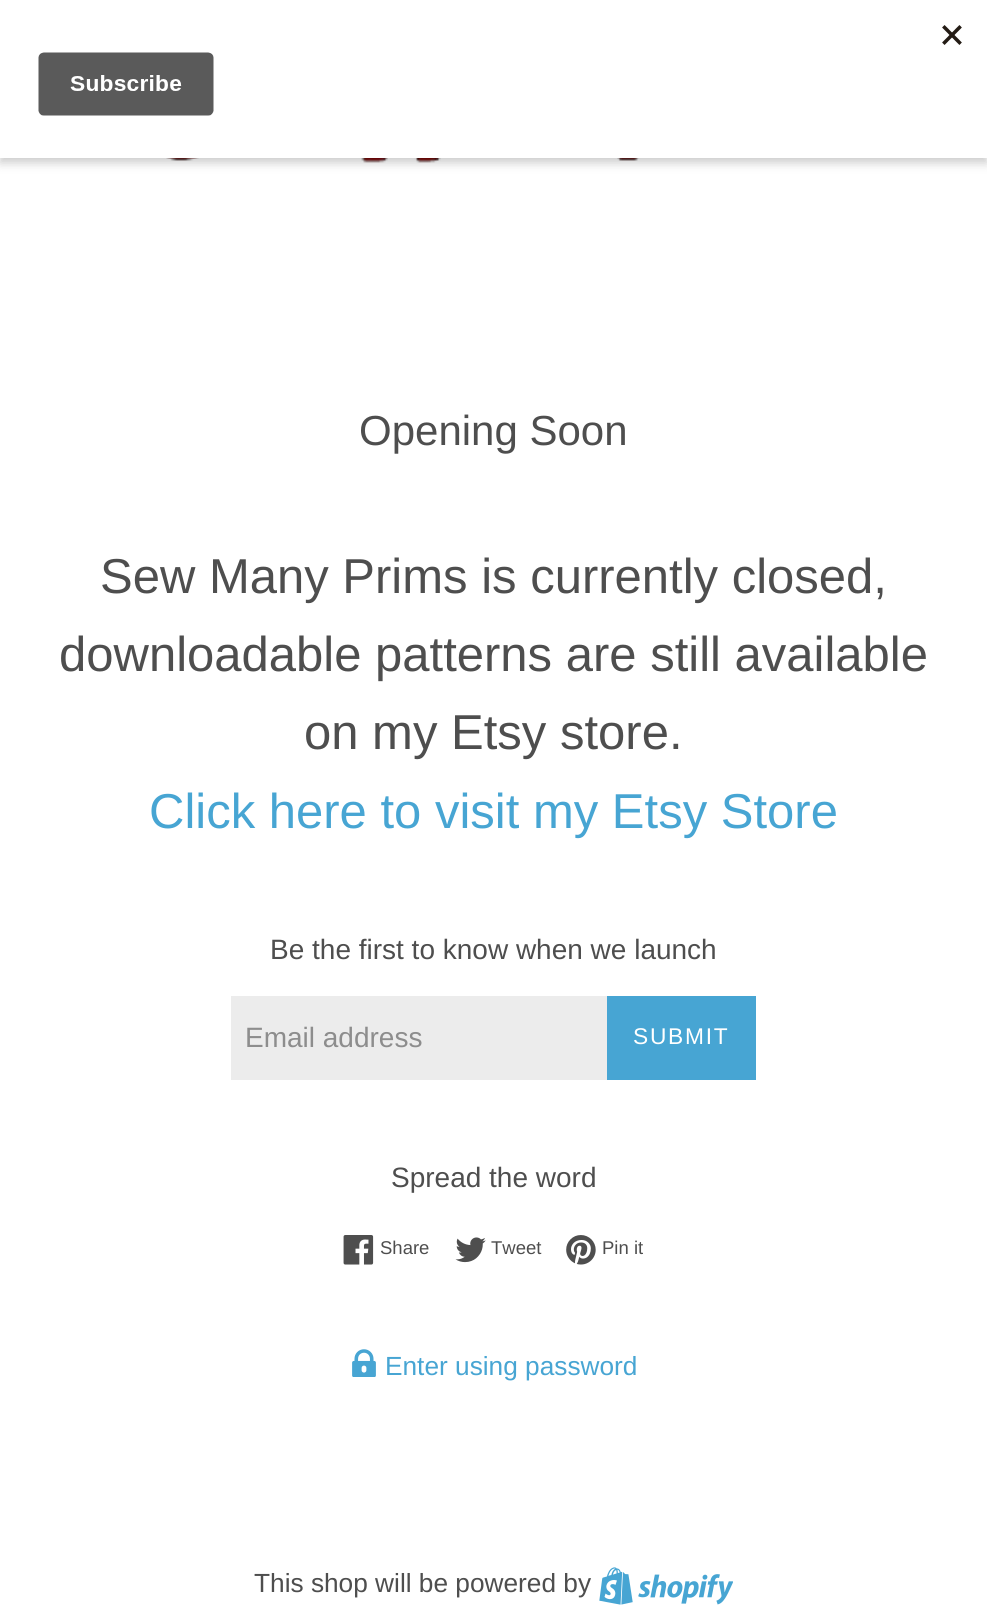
import math
import cairo

surface = cairo.ImageSurface(cairo.FORMAT_RGB24, 987, 1621)
ctx = cairo.Context(surface)
options = cairo.FontOptions()
options.set_hint_metrics(cairo.HINT_METRICS_OFF)
options.set_hint_style(cairo.HINT_STYLE_NONE)
ctx.set_font_options(options)
ctx.set_miter_limit(4)


def spaced_text(x, y, s, letter, word):
    ctx.move_to(x, y)
    for ch in s:
        ctx.show_text(ch)
        ctx.rel_move_to(letter + word * (ch == ' '), 0)


def round_rect(x, y, w, h, r):
    ctx.new_sub_path()
    for i, (u, v) in enumerate([(x + w - r, y + h - r), (x + r, y + h - r), (x + r, y + r), (x + w - r, y + r)]):
        ctx.arc(u, v, r, i * math.pi / 2, (i + 1) * math.pi / 2)
    ctx.close_path()


def shadow(x, y, w, h, r, blur, alpha):
    ctx.push_group_with_content(cairo.CONTENT_ALPHA)
    ctx.set_operator(cairo.OPERATOR_SOURCE)
    for i in range(15, -16, -2):
        e = blur * i / 6
        if min(w, h) + 2 * e > 0:
            ctx.set_source_rgba(0, 0, 0, alpha * math.erfc((i - 1) / 8.5) / 2)
            round_rect(x - e, y - e, w + 2 * e, h + 2 * e, max(0, min(r + e + blur * .6, min(w, h) / 2 + e)))
            ctx.fill()
    ctx.mask(ctx.pop_group())


def picture(path, x, y, w, h):
    ctx.save()
    ctx.set_source_surface(cairo.ImageSurface.create_from_png(path), x, y)
    ctx.rectangle(x, y, w, h)
    ctx.fill()
    ctx.restore()


ctx.set_source_rgb(1, 1, 1)
ctx.paint()
picture("img2.png", 166, 158, 474, 5)
ctx.set_source_rgb(0, 0, 0)
shadow(0, 5, 987, 158, 0, 5, 0.2)
ctx.set_source_rgb(1, 1, 1)
ctx.rectangle(0, 0, 987, 158)
ctx.fill()
picture("img1.png", 38, 25, 924, 91)
ctx.select_font_face("Liberation Sans")
ctx.set_font_size(42)
ctx.set_source_rgb(0.306, 0.306, 0.306)
ctx.move_to(359, 445)
ctx.show_text("Opening Soon")
ctx.set_font_size(49)
ctx.move_to(100, 593)
ctx.show_text("Sew Many Prims is currently closed,")
ctx.move_to(59, 671)
ctx.show_text("downloadable patterns are still available")
ctx.move_to(304, 749)
ctx.show_text("on my Etsy store.")
ctx.set_source_rgb(0.278, 0.647, 0.827)
ctx.move_to(149, 828)
ctx.show_text("Click here to visit my Etsy Store")
ctx.set_font_size(28)
ctx.set_source_rgb(0.306, 0.306, 0.306)
ctx.move_to(270, 959)
ctx.show_text("Be the first to know when we launch")
ctx.set_source_rgb(0.922, 0.922, 0.922)
ctx.rectangle(231, 996, 376, 84)
ctx.fill()
ctx.set_source_rgb(0.553, 0.553, 0.553)
ctx.move_to(245, 1047)
ctx.show_text("Email address")
ctx.set_source_rgb(0.278, 0.647, 0.827)
ctx.rectangle(607, 996, 149, 84)
ctx.fill()
ctx.set_font_size(22.75)
ctx.set_source_rgb(1, 1, 1)
spaced_text(633, 1044, "SUBMIT", 1.75, 0)
ctx.set_font_size(28)
ctx.set_source_rgb(0.306, 0.306, 0.306)
ctx.move_to(391, 1187)
ctx.show_text("Spread the word")
picture("img3.png", 343, 1235, 31, 30)
ctx.set_font_size(18.5)
ctx.move_to(380, 1254)
ctx.show_text("Share")
picture("img4.png", 455, 1237, 31, 26)
ctx.move_to(491, 1254)
ctx.show_text("Tweet")
picture("img5.png", 566, 1235, 30, 30)
ctx.move_to(602, 1254)
ctx.show_text("Pin it")
picture("img6.png", 352, 1349, 24, 28)
ctx.set_font_size(26.25)
ctx.set_source_rgb(0.278, 0.647, 0.827)
ctx.move_to(385, 1375)
ctx.show_text("Enter using password")
ctx.set_source_rgb(0.306, 0.306, 0.306)
ctx.move_to(254, 1592)
ctx.show_text("This shop will be powered by")
picture("img7.png", 599, 1567, 134, 38)
surface.write_to_png("page.png")
